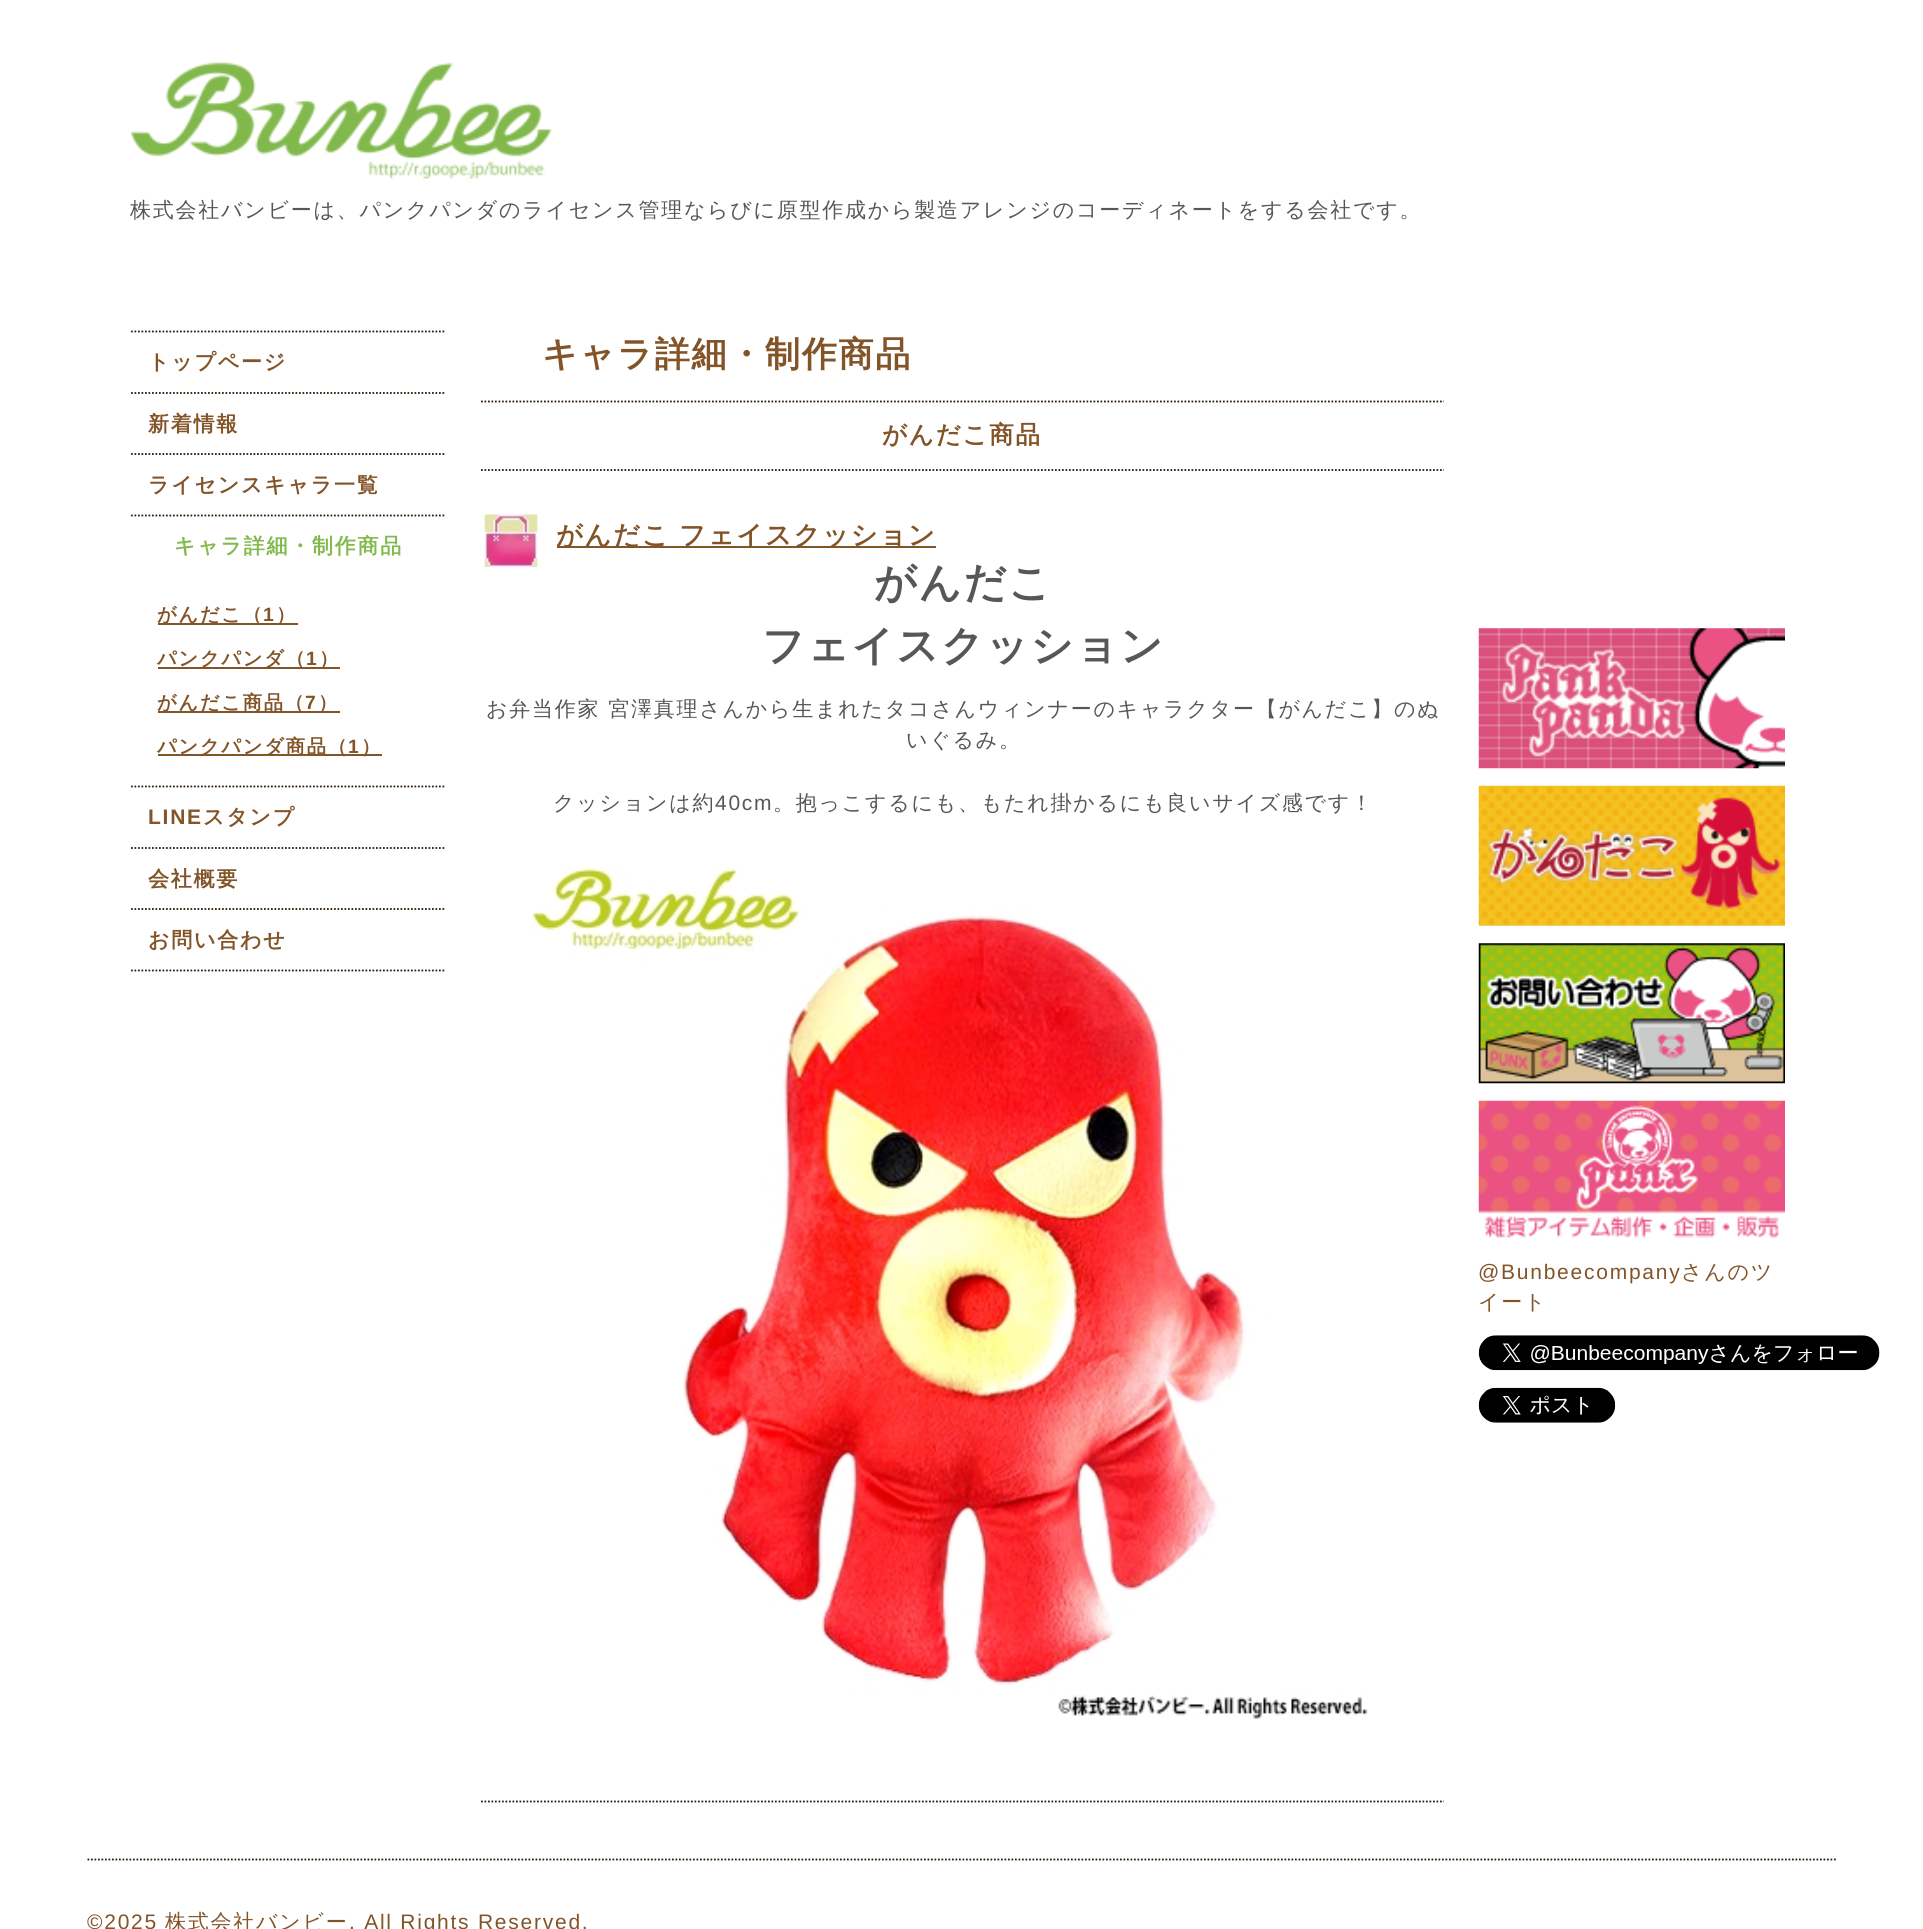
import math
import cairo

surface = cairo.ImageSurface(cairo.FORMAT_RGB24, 1923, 1929)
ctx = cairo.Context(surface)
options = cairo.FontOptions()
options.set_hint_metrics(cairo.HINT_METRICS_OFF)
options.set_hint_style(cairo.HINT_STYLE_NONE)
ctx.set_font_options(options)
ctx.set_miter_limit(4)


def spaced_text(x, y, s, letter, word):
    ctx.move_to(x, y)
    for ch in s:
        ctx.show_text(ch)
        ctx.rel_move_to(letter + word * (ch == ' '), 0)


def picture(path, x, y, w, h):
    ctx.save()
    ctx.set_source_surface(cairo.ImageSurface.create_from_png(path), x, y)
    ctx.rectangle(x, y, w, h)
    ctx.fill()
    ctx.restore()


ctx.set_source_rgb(1, 1, 1)
ctx.paint()
picture("img1.png", 131, 62, 421, 117)
ctx.select_font_face("WenQuanYi Zen Hei Medium")
ctx.set_font_size(21)
ctx.set_source_rgb(0.341, 0.341, 0.341)
spaced_text(130, 217, "株式会社バンビーは、パンクパンダのライセンス管理ならびに原型作成から製造アレンジのコーディネートをする会社です。", 1.75, 0)
ctx.new_path()
ctx.move_to(131, 331.5)
ctx.line_to(446, 331.5)
ctx.set_source_rgb(0.176, 0.098, 0.02)
ctx.set_line_width(1.8)
ctx.set_dash([1.75, 1.75])
ctx.stroke()
ctx.new_path()
ctx.move_to(131, 393)
ctx.line_to(446, 393)
ctx.stroke()
ctx.select_font_face("WenQuanYi Zen Hei", cairo.FONT_SLANT_NORMAL, cairo.FONT_WEIGHT_BOLD)
ctx.set_source_rgb(0.51, 0.329, 0.157)
spaced_text(148, 369, "トップページ", 1.75, 0)
ctx.new_path()
ctx.move_to(131, 454)
ctx.line_to(446, 454)
ctx.set_source_rgb(0.176, 0.098, 0.02)
ctx.stroke()
ctx.set_source_rgb(0.51, 0.329, 0.157)
spaced_text(148, 431, "新着情報", 1.75, 0)
ctx.new_path()
ctx.move_to(131, 515.5)
ctx.line_to(446, 515.5)
ctx.set_source_rgb(0.176, 0.098, 0.02)
ctx.stroke()
ctx.set_source_rgb(0.51, 0.329, 0.157)
spaced_text(148, 492, "ライセンスキャラ一覧", 1.75, 0)
ctx.new_path()
ctx.move_to(131, 786.5)
ctx.line_to(446, 786.5)
ctx.set_source_rgb(0.176, 0.098, 0.02)
ctx.stroke()
ctx.set_source_rgb(0.51, 0.725, 0.302)
spaced_text(174, 553, "キャラ詳細・制作商品", 1.75, 0)
ctx.set_source_rgb(0.51, 0.329, 0.157)
ctx.rectangle(158, 623, 140, 2)
ctx.fill()
ctx.set_font_size(19.25)
spaced_text(157, 621, "がんだこ（", 1.75, 0)
ctx.select_font_face("Liberation Sans", cairo.FONT_SLANT_NORMAL, cairo.FONT_WEIGHT_BOLD)
spaced_text(263, 621, "1", 1.75, 0)
ctx.select_font_face("WenQuanYi Zen Hei", cairo.FONT_SLANT_NORMAL, cairo.FONT_WEIGHT_BOLD)
spaced_text(276, 621, "）", 1.75, 0)
ctx.rectangle(158, 667, 182, 2)
ctx.fill()
spaced_text(157, 665, "パンクパンダ（", 1.75, 0)
ctx.select_font_face("Liberation Sans", cairo.FONT_SLANT_NORMAL, cairo.FONT_WEIGHT_BOLD)
spaced_text(306, 665, "1", 1.75, 0)
ctx.select_font_face("WenQuanYi Zen Hei", cairo.FONT_SLANT_NORMAL, cairo.FONT_WEIGHT_BOLD)
spaced_text(319, 665, "）", 1.75, 0)
ctx.rectangle(158, 711, 182, 2)
ctx.fill()
spaced_text(157, 709, "がんだこ商品（", 1.75, 0)
ctx.select_font_face("Liberation Sans", cairo.FONT_SLANT_NORMAL, cairo.FONT_WEIGHT_BOLD)
spaced_text(305, 709, "7", 1.75, 0)
ctx.select_font_face("WenQuanYi Zen Hei", cairo.FONT_SLANT_NORMAL, cairo.FONT_WEIGHT_BOLD)
spaced_text(318, 709, "）", 1.75, 0)
ctx.rectangle(158, 754, 224, 2)
ctx.fill()
spaced_text(157, 753, "パンクパンダ商品（", 1.75, 0)
ctx.select_font_face("Liberation Sans", cairo.FONT_SLANT_NORMAL, cairo.FONT_WEIGHT_BOLD)
spaced_text(348, 753, "1", 1.75, 0)
ctx.select_font_face("WenQuanYi Zen Hei", cairo.FONT_SLANT_NORMAL, cairo.FONT_WEIGHT_BOLD)
spaced_text(361, 753, "）", 1.75, 0)
ctx.new_path()
ctx.move_to(131, 848)
ctx.line_to(446, 848)
ctx.set_source_rgb(0.176, 0.098, 0.02)
ctx.stroke()
ctx.select_font_face("Liberation Sans", cairo.FONT_SLANT_NORMAL, cairo.FONT_WEIGHT_BOLD)
ctx.set_font_size(21)
ctx.set_source_rgb(0.51, 0.329, 0.157)
spaced_text(148, 824, "LINE", 1.75, 0)
ctx.select_font_face("WenQuanYi Zen Hei", cairo.FONT_SLANT_NORMAL, cairo.FONT_WEIGHT_BOLD)
spaced_text(203, 824, "スタンプ", 1.75, 0)
ctx.new_path()
ctx.move_to(131, 909)
ctx.line_to(446, 909)
ctx.set_source_rgb(0.176, 0.098, 0.02)
ctx.stroke()
ctx.set_source_rgb(0.51, 0.329, 0.157)
spaced_text(148, 886, "会社概要", 1.75, 0)
ctx.new_path()
ctx.move_to(131, 970.5)
ctx.line_to(446, 970.5)
ctx.set_source_rgb(0.176, 0.098, 0.02)
ctx.stroke()
ctx.set_source_rgb(0.51, 0.329, 0.157)
spaced_text(148, 947, "お問い合わせ", 1.75, 0)
ctx.set_font_size(35)
spaced_text(542, 366, "キャラ詳細・制作商品", 1.75, 0)
ctx.new_path()
ctx.move_to(481, 1801.5)
ctx.line_to(1444, 1801.5)
ctx.set_source_rgb(0.176, 0.098, 0.02)
ctx.stroke()
ctx.new_path()
ctx.move_to(481, 401.5)
ctx.line_to(1444, 401.5)
ctx.stroke()
ctx.new_path()
ctx.move_to(481, 470)
ctx.line_to(1444, 470)
ctx.stroke()
ctx.set_font_size(24.5)
ctx.set_source_rgb(0.51, 0.329, 0.157)
spaced_text(882, 443, "がんだこ商品", 1.75, 0)
picture("img2.png", 484, 514, 54, 53)
ctx.rectangle(557, 546, 379, 2)
ctx.fill()
ctx.set_font_size(26.25)
spaced_text(556, 544, "がんだこ フェイスクッション", 1.75, -1)
ctx.set_font_size(42)
ctx.set_source_rgb(0.341, 0.341, 0.341)
spaced_text(874, 597, "がんだこ", 1.75, 0)
spaced_text(762, 660, "フェイスクッション", 1.75, 0)
ctx.select_font_face("WenQuanYi Zen Hei Medium")
ctx.set_font_size(21)
spaced_text(486, 716, "お弁当作家 宮澤真理さんから生まれたタコさんウィンナーのキャラクター【がんだこ】のぬ", 1.75, 0)
spaced_text(906, 747, "いぐるみ。", 1.75, 0)
spaced_text(553, 810, "クッションは約", 1.75, 0)
ctx.select_font_face("Liberation Sans")
spaced_text(715, 810, "40cm", 1.75, 0)
ctx.select_font_face("WenQuanYi Zen Hei Medium")
spaced_text(773, 810, "。抱っこするにも、もたれ掛かるにも良いサイズ感です！", 1.75, 0)
picture("img3.png", 531, 866, 837, 853)
picture("img4.png", 1478, 628, 307, 141)
picture("img5.png", 1478, 785, 307, 141)
picture("img6.png", 1478, 943, 307, 141)
picture("img7.png", 1478, 1100, 307, 138)
ctx.select_font_face("Liberation Sans")
ctx.set_source_rgb(0.51, 0.329, 0.157)
spaced_text(1478, 1279, "@Bunbeecompany", 1.75, 0)
ctx.select_font_face("WenQuanYi Zen Hei Medium")
spaced_text(1681, 1279, "さんのツ", 1.75, 0)
spaced_text(1478, 1309, "イート", 1.75, 0)
picture("img8.png", 1478, 1335, 402, 36)
picture("img9.png", 1478, 1387, 138, 36)
ctx.new_path()
ctx.move_to(87.5, 1859.5)
ctx.line_to(1837.5, 1859.5)
ctx.set_source_rgb(0.176, 0.098, 0.02)
ctx.stroke()
ctx.select_font_face("Liberation Sans")
ctx.set_source_rgb(0.51, 0.329, 0.157)
spaced_text(87, 1929, "©2025", 1.75, 0)
ctx.select_font_face("WenQuanYi Zen Hei Medium")
spaced_text(165, 1929, "株式会社バンビー", 1.75, 0)
ctx.select_font_face("Liberation Sans")
spaced_text(349, 1929, ". All Rights Reserved.", 1.75, 0)
surface.write_to_png("page.png")
